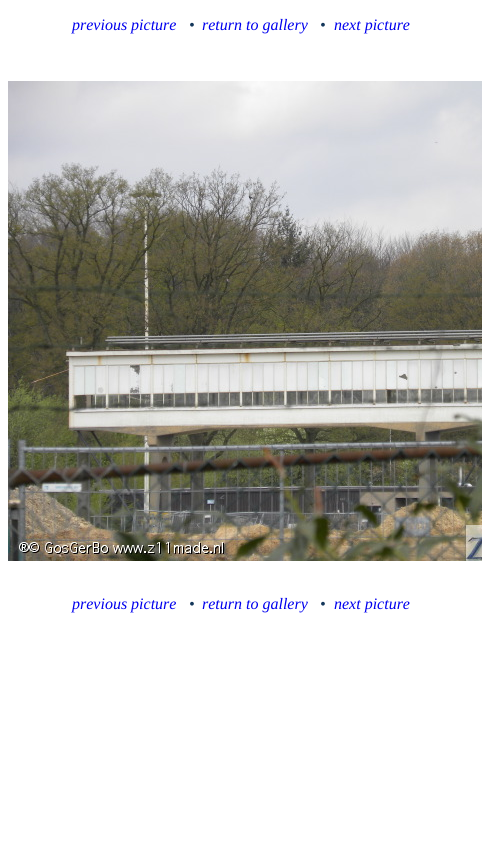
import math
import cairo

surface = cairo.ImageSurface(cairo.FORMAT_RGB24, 482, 845)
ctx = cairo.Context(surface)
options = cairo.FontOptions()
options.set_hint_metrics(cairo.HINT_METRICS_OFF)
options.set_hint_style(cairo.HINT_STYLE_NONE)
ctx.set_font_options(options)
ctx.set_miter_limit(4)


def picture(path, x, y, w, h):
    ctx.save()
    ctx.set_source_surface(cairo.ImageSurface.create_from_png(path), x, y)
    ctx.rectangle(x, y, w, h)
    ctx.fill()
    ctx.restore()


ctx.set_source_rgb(1, 1, 1)
ctx.paint()
ctx.select_font_face("Liberation Serif", cairo.FONT_SLANT_ITALIC)
ctx.set_font_size(16)
ctx.set_source_rgb(0, 0, 0.933)
ctx.move_to(72, 30)
ctx.show_text("previous picture")
ctx.set_source_rgb(0.082, 0.216, 0.353)
ctx.move_to(189, 30)
ctx.show_text("•")
ctx.set_source_rgb(0, 0, 0.933)
ctx.move_to(202, 30)
ctx.show_text("return to gallery")
ctx.set_source_rgb(0.082, 0.216, 0.353)
ctx.move_to(320, 30)
ctx.show_text("•")
ctx.set_source_rgb(0, 0, 0.933)
ctx.move_to(334, 30)
ctx.show_text("next picture")
picture("img1.png", 8, 81, 474, 480)
ctx.move_to(72, 609)
ctx.show_text("previous picture")
ctx.set_source_rgb(0.082, 0.216, 0.353)
ctx.move_to(189, 609)
ctx.show_text("•")
ctx.set_source_rgb(0, 0, 0.933)
ctx.move_to(202, 609)
ctx.show_text("return to gallery")
ctx.set_source_rgb(0.082, 0.216, 0.353)
ctx.move_to(320, 609)
ctx.show_text("•")
ctx.set_source_rgb(0, 0, 0.933)
ctx.move_to(334, 609)
ctx.show_text("next picture")
surface.write_to_png("page.png")
